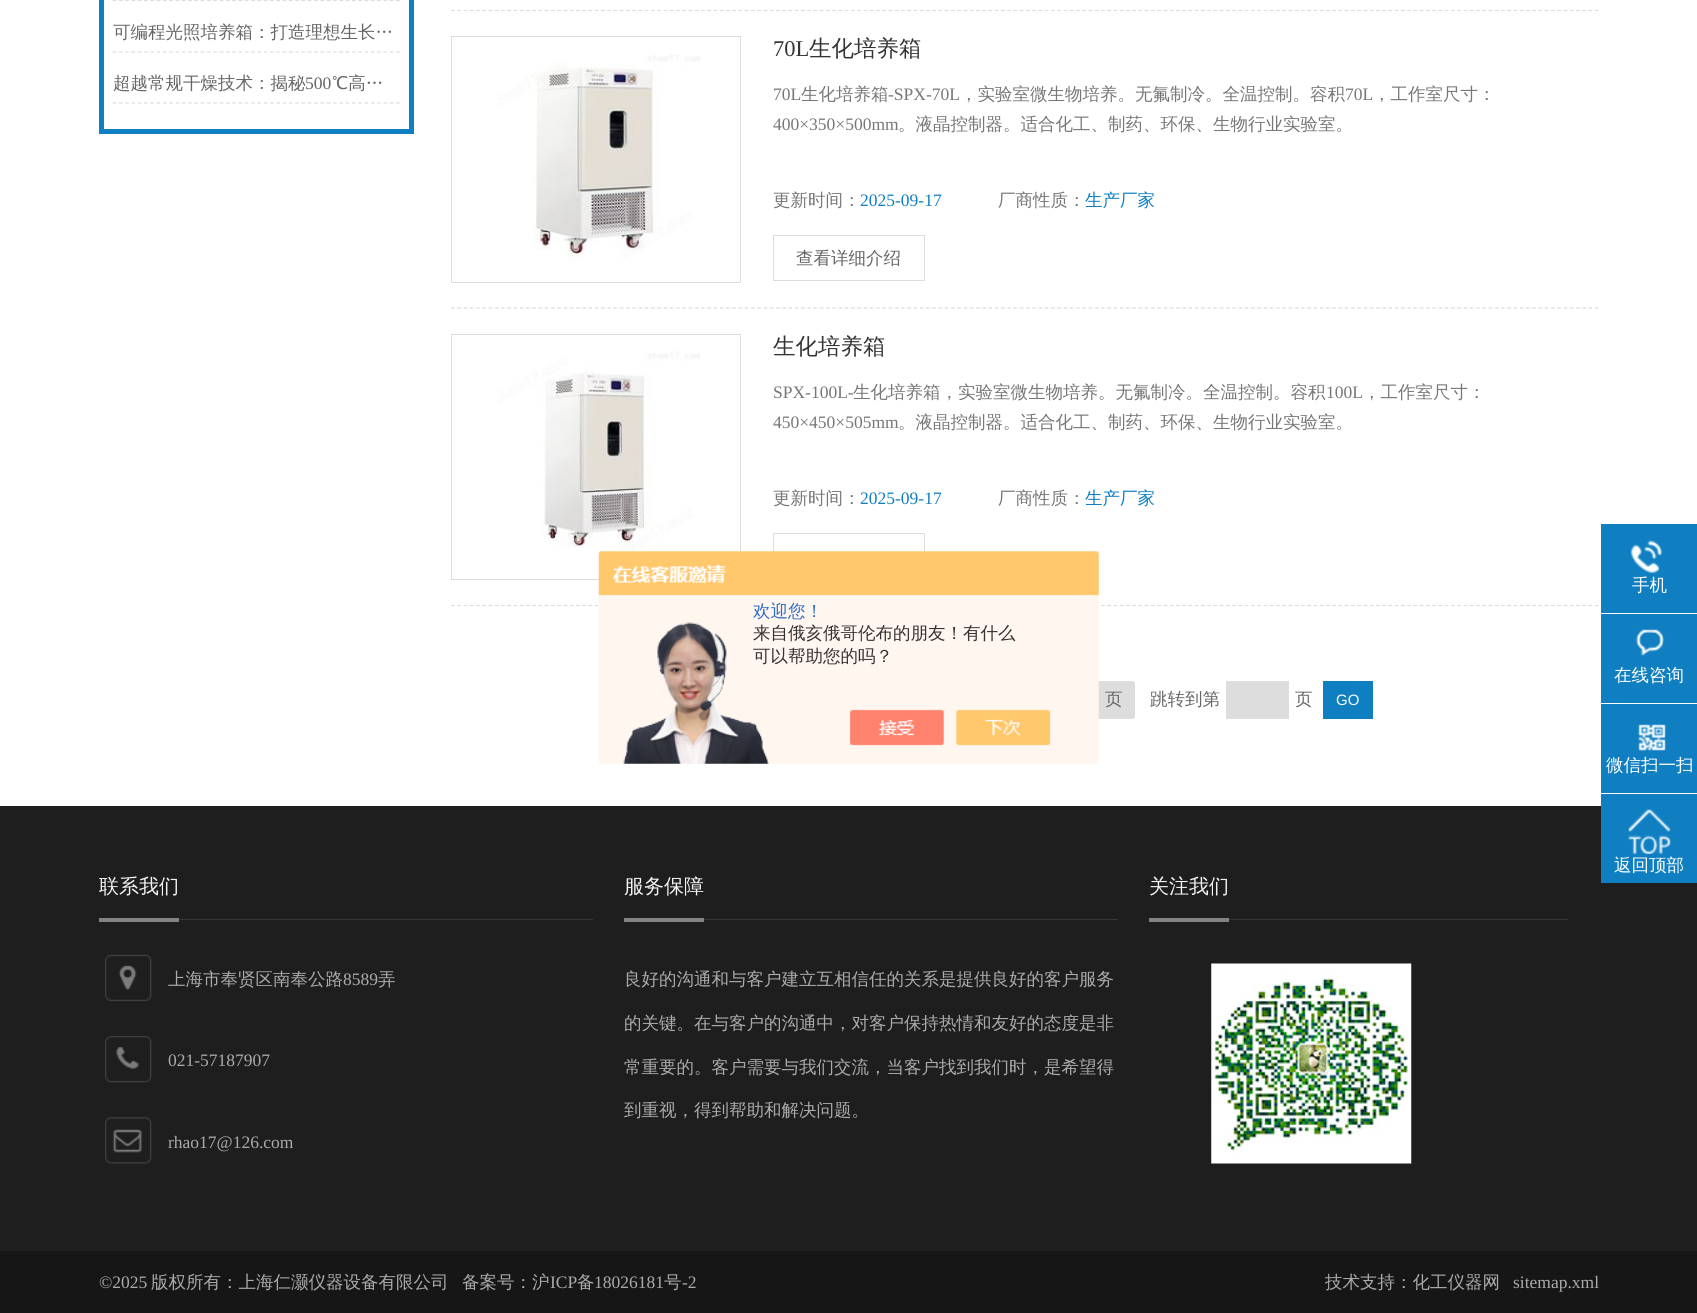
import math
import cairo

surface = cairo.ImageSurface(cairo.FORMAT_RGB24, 1697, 1313)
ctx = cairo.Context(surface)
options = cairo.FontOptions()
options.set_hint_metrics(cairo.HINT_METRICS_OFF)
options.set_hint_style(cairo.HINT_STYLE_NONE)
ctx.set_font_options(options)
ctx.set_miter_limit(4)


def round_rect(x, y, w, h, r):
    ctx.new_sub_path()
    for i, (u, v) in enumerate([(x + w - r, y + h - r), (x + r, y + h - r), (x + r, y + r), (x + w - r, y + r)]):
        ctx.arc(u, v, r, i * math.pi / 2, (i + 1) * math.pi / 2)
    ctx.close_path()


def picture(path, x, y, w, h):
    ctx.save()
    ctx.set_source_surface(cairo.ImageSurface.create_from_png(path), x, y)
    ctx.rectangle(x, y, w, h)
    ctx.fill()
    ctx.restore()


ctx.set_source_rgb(1, 1, 1)
ctx.paint()
ctx.set_source_rgb(0.059, 0.498, 0.761)
ctx.rectangle(409, 0, 5, 134)
ctx.fill()
ctx.rectangle(99, 129, 315, 5)
ctx.fill()
ctx.rectangle(99, 0, 5, 134)
ctx.fill()
ctx.new_path()
ctx.move_to(112.5, 0.5)
ctx.line_to(400, 0.5)
ctx.set_source_rgb(0.871, 0.871, 0.871)
ctx.set_line_width(1.2)
ctx.set_dash([3.75, 2.55])
ctx.stroke()
ctx.new_path()
ctx.move_to(112.5, 52)
ctx.line_to(400, 52)
ctx.stroke()
ctx.select_font_face("WenQuanYi Zen Hei Medium")
ctx.set_font_size(17.5)
ctx.set_source_rgb(0.4, 0.4, 0.4)
ctx.move_to(113, 38)
ctx.show_text("可编程光照培养箱：打造理想生长…")
ctx.new_path()
ctx.move_to(112.5, 103)
ctx.line_to(400, 103)
ctx.set_source_rgb(0.871, 0.871, 0.871)
ctx.stroke()
ctx.set_source_rgb(0.4, 0.4, 0.4)
ctx.move_to(113, 89)
ctx.show_text("超越常规干燥技术：揭秘")
ctx.select_font_face("Liberation Serif")
ctx.move_to(305, 89)
ctx.show_text("500")
ctx.select_font_face("WenQuanYi Zen Hei Medium")
ctx.move_to(332, 89)
ctx.show_text("℃高…")
ctx.new_path()
ctx.move_to(451, 10.5)
ctx.line_to(1599, 10.5)
ctx.set_source_rgb(0.867, 0.867, 0.867)
ctx.set_dash([3.75, 2.5])
ctx.stroke()
ctx.new_path()
ctx.move_to(451, 308)
ctx.line_to(1599, 308)
ctx.stroke()
ctx.rectangle(451.5, 36.5, 289, 246)
ctx.set_line_width(1)
ctx.set_dash([])
ctx.stroke()
picture("img1.png", 497, 54, 204, 207)
ctx.select_font_face("Liberation Serif")
ctx.set_font_size(22.5)
ctx.set_source_rgb(0.2, 0.2, 0.2)
ctx.move_to(773, 56)
ctx.show_text("70L")
ctx.select_font_face("WenQuanYi Zen Hei Medium")
ctx.move_to(809, 56)
ctx.show_text("生化培养箱")
ctx.select_font_face("Liberation Serif")
ctx.set_font_size(17.5)
ctx.set_source_rgb(0.467, 0.467, 0.467)
ctx.move_to(773, 100)
ctx.show_text("70L")
ctx.select_font_face("WenQuanYi Zen Hei Medium")
ctx.move_to(801, 100)
ctx.show_text("生化培养箱")
ctx.select_font_face("Liberation Serif")
ctx.move_to(888, 100)
ctx.show_text("-SPX-70L")
ctx.select_font_face("WenQuanYi Zen Hei Medium")
ctx.move_to(960, 100)
ctx.show_text("，实验室微生物培养。无氟制冷。全温控制。容积")
ctx.select_font_face("Liberation Serif")
ctx.move_to(1345, 100)
ctx.show_text("70L")
ctx.select_font_face("WenQuanYi Zen Hei Medium")
ctx.move_to(1373, 100)
ctx.show_text("，工作室尺寸：")
ctx.select_font_face("Liberation Serif")
ctx.move_to(773, 130)
ctx.show_text("400×350×500mm")
ctx.select_font_face("WenQuanYi Zen Hei Medium")
ctx.move_to(898, 130)
ctx.show_text("。液晶控制器。适合化工、制药、环保、生物行业实验室。")
ctx.move_to(773, 206)
ctx.show_text("更新时间：")
ctx.select_font_face("Liberation Serif")
ctx.set_source_rgb(0.059, 0.498, 0.761)
ctx.move_to(860, 206)
ctx.show_text("2025-09-17")
ctx.select_font_face("WenQuanYi Zen Hei Medium")
ctx.set_source_rgb(0.467, 0.467, 0.467)
ctx.move_to(998, 206)
ctx.show_text("厂商性质：")
ctx.set_source_rgb(0.059, 0.498, 0.761)
ctx.move_to(1085, 206)
ctx.show_text("生产厂家")
ctx.rectangle(773.5, 235.5, 151, 45)
ctx.set_source_rgb(0.867, 0.867, 0.867)
ctx.stroke()
ctx.set_source_rgb(0.4, 0.4, 0.4)
ctx.move_to(796, 264)
ctx.show_text("查看详细介绍")
ctx.new_path()
ctx.move_to(451, 605.5)
ctx.line_to(1599, 605.5)
ctx.set_source_rgb(0.867, 0.867, 0.867)
ctx.set_line_width(1.2)
ctx.set_dash([3.75, 2.5])
ctx.stroke()
ctx.rectangle(451.5, 334.5, 289, 245)
ctx.set_line_width(1)
ctx.set_dash([])
ctx.stroke()
picture("img2.png", 497, 351, 204, 205)
ctx.set_font_size(22.5)
ctx.set_source_rgb(0.2, 0.2, 0.2)
ctx.move_to(773, 354)
ctx.show_text("生化培养箱")
ctx.select_font_face("Liberation Serif")
ctx.set_font_size(17.5)
ctx.set_source_rgb(0.467, 0.467, 0.467)
ctx.move_to(773, 398)
ctx.show_text("SPX-100L-")
ctx.select_font_face("WenQuanYi Zen Hei Medium")
ctx.move_to(853, 398)
ctx.show_text("生化培养箱，实验室微生物培养。无氟制冷。全温控制。容积")
ctx.select_font_face("Liberation Serif")
ctx.move_to(1326, 398)
ctx.show_text("100L")
ctx.select_font_face("WenQuanYi Zen Hei Medium")
ctx.move_to(1363, 398)
ctx.show_text("，工作室尺寸：")
ctx.select_font_face("Liberation Serif")
ctx.move_to(773, 428)
ctx.show_text("450×450×505mm")
ctx.select_font_face("WenQuanYi Zen Hei Medium")
ctx.move_to(898, 428)
ctx.show_text("。液晶控制器。适合化工、制药、环保、生物行业实验室。")
ctx.move_to(773, 504)
ctx.show_text("更新时间：")
ctx.select_font_face("Liberation Serif")
ctx.set_source_rgb(0.059, 0.498, 0.761)
ctx.move_to(860, 504)
ctx.show_text("2025-09-17")
ctx.select_font_face("WenQuanYi Zen Hei Medium")
ctx.set_source_rgb(0.467, 0.467, 0.467)
ctx.move_to(998, 504)
ctx.show_text("厂商性质：")
ctx.set_source_rgb(0.059, 0.498, 0.761)
ctx.move_to(1085, 504)
ctx.show_text("生产厂家")
ctx.rectangle(773.5, 533.5, 151, 45)
ctx.set_source_rgb(0.867, 0.867, 0.867)
ctx.stroke()
round_rect(1075, 681, 60, 38, 2.5)
ctx.fill()
ctx.set_source_rgb(0.4, 0.4, 0.4)
ctx.move_to(1105, 705)
ctx.show_text("页")
ctx.move_to(1150, 705)
ctx.show_text("跳转到第")
ctx.set_source_rgb(0.867, 0.867, 0.867)
ctx.rectangle(1226, 681, 63, 38)
ctx.fill()
ctx.set_source_rgb(0.4, 0.4, 0.4)
ctx.move_to(1295, 705)
ctx.show_text("页")
ctx.set_source_rgb(0.059, 0.498, 0.761)
ctx.rectangle(1323, 681, 50, 38)
ctx.fill()
ctx.select_font_face("Liberation Sans")
ctx.set_font_size(15)
ctx.set_source_rgb(1, 1, 1)
ctx.move_to(1336, 705)
ctx.show_text("GO")
ctx.set_source_rgb(0.059, 0.498, 0.761)
ctx.rectangle(1601, 524, 96, 89)
ctx.fill()
picture("img3.png", 1630, 540, 32, 33)
ctx.select_font_face("WenQuanYi Zen Hei Medium")
ctx.set_font_size(17.5)
ctx.set_source_rgb(1, 1, 1)
ctx.move_to(1632, 591)
ctx.show_text("手机")
ctx.set_source_rgb(0.059, 0.498, 0.761)
ctx.rectangle(1601, 614, 96, 89)
ctx.fill()
picture("img4.png", 1635, 629, 30, 27)
ctx.set_source_rgb(1, 1, 1)
ctx.move_to(1614, 681)
ctx.show_text("在线咨询")
ctx.set_source_rgb(0.059, 0.498, 0.761)
ctx.rectangle(1601, 704, 96, 89)
ctx.fill()
picture("img5.png", 1638, 724, 28, 27)
ctx.set_source_rgb(1, 1, 1)
ctx.move_to(1606, 771)
ctx.show_text("微信扫一扫")
ctx.set_source_rgb(0.118, 0.118, 0.118)
ctx.rectangle(0, 806, 1697, 445)
ctx.fill()
ctx.set_source_rgb(0.059, 0.498, 0.761)
ctx.rectangle(1601, 794, 96, 89)
ctx.fill()
picture("img6.png", 1628, 809, 43, 45)
ctx.set_source_rgb(1, 1, 1)
ctx.move_to(1614, 871)
ctx.show_text("返回顶部")
picture("img7.png", 598, 551, 501, 213)
ctx.set_source_rgb(0.18, 0.431, 0.776)
ctx.move_to(753, 617)
ctx.show_text("欢迎您！")
ctx.set_source_rgb(0.2, 0.2, 0.2)
ctx.move_to(753, 639)
ctx.show_text("来自俄亥俄哥伦布的朋友！有什么")
ctx.move_to(753, 662)
ctx.show_text("可以帮助您的吗？")
ctx.set_source_rgb(0.212, 0.212, 0.212)
ctx.rectangle(179, 919, 414, 1)
ctx.fill()
ctx.set_source_rgb(0.514, 0.514, 0.514)
ctx.rectangle(99, 918, 80, 4)
ctx.fill()
ctx.set_font_size(20)
ctx.set_source_rgb(0.953, 0.953, 0.953)
ctx.move_to(99, 893)
ctx.show_text("联系我们")
picture("img8.png", 105, 954, 47, 210)
ctx.set_font_size(17.5)
ctx.set_source_rgb(0.671, 0.671, 0.671)
ctx.move_to(168, 985)
ctx.show_text("上海市奉贤区南奉公路")
ctx.select_font_face("Liberation Serif")
ctx.move_to(343, 985)
ctx.show_text("8589")
ctx.select_font_face("WenQuanYi Zen Hei Medium")
ctx.move_to(378, 985)
ctx.show_text("弄")
ctx.select_font_face("Liberation Serif")
ctx.move_to(168, 1066)
ctx.show_text("021-57187907")
ctx.move_to(168, 1148)
ctx.show_text("rhao17@126.com")
ctx.set_source_rgb(0.212, 0.212, 0.212)
ctx.rectangle(704, 919, 414, 1)
ctx.fill()
ctx.set_source_rgb(0.514, 0.514, 0.514)
ctx.rectangle(624, 918, 80, 4)
ctx.fill()
ctx.select_font_face("WenQuanYi Zen Hei Medium")
ctx.set_font_size(20)
ctx.set_source_rgb(0.953, 0.953, 0.953)
ctx.move_to(624, 893)
ctx.show_text("服务保障")
ctx.set_font_size(17.5)
ctx.set_source_rgb(0.671, 0.671, 0.671)
ctx.move_to(624, 985)
ctx.show_text("良好的沟通和与客户建立互相信任的关系是提供良好的客户服务")
ctx.move_to(624, 1029)
ctx.show_text("的关键。在与客户的沟通中，对客户保持热情和友好的态度是非")
ctx.move_to(624, 1073)
ctx.show_text("常重要的。客户需要与我们交流，当客户找到我们时，是希望得")
ctx.move_to(624, 1116)
ctx.show_text("到重视，得到帮助和解决问题。")
ctx.set_source_rgb(0.212, 0.212, 0.212)
ctx.rectangle(1229, 919, 339, 1)
ctx.fill()
ctx.set_source_rgb(0.514, 0.514, 0.514)
ctx.rectangle(1149, 918, 80, 4)
ctx.fill()
ctx.set_font_size(20)
ctx.set_source_rgb(0.953, 0.953, 0.953)
ctx.move_to(1149, 893)
ctx.show_text("关注我们")
picture("img9.png", 1211, 963, 201, 201)
ctx.set_source_rgb(0.086, 0.086, 0.086)
ctx.rectangle(0, 1251, 1697, 62)
ctx.fill()
ctx.select_font_face("Liberation Serif")
ctx.set_font_size(17.5)
ctx.set_source_rgb(0.671, 0.671, 0.671)
ctx.move_to(99, 1288)
ctx.show_text("©2025")
ctx.select_font_face("WenQuanYi Zen Hei Medium")
ctx.move_to(151, 1288)
ctx.show_text("版权所有：上海仁灏仪器设备有限公司")
ctx.move_to(462, 1288)
ctx.show_text("备案号：沪")
ctx.select_font_face("Liberation Serif")
ctx.move_to(550, 1288)
ctx.show_text("ICP")
ctx.select_font_face("WenQuanYi Zen Hei Medium")
ctx.move_to(577, 1288)
ctx.show_text("备")
ctx.select_font_face("Liberation Serif")
ctx.move_to(594, 1288)
ctx.show_text("18026181")
ctx.select_font_face("WenQuanYi Zen Hei Medium")
ctx.move_to(664, 1288)
ctx.show_text("号")
ctx.select_font_face("Liberation Serif")
ctx.move_to(682, 1288)
ctx.show_text("-2")
ctx.select_font_face("WenQuanYi Zen Hei Medium")
ctx.move_to(1325, 1288)
ctx.show_text("技术支持：化工仪器网")
ctx.select_font_face("Liberation Serif")
ctx.move_to(1513, 1288)
ctx.show_text("sitemap.xml")
surface.write_to_png("page.png")
